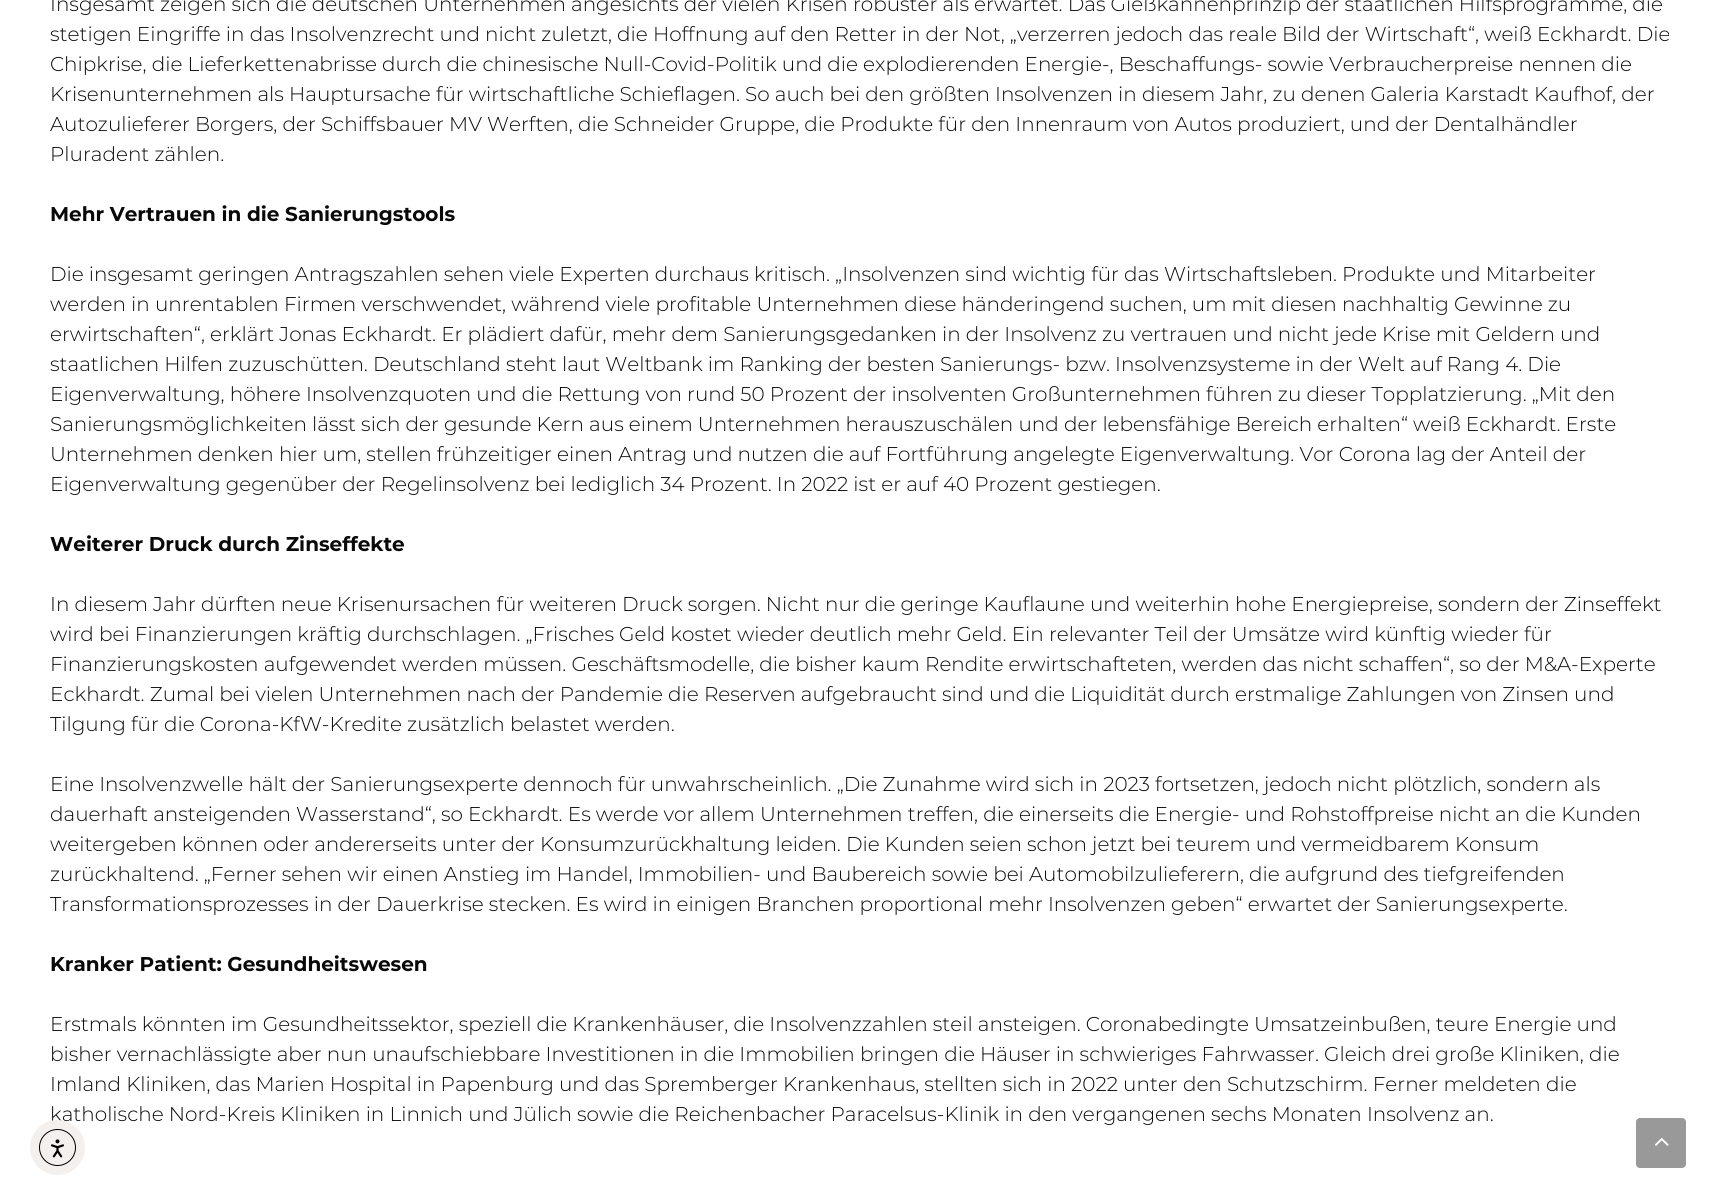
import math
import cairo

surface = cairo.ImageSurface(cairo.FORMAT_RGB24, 1723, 1204)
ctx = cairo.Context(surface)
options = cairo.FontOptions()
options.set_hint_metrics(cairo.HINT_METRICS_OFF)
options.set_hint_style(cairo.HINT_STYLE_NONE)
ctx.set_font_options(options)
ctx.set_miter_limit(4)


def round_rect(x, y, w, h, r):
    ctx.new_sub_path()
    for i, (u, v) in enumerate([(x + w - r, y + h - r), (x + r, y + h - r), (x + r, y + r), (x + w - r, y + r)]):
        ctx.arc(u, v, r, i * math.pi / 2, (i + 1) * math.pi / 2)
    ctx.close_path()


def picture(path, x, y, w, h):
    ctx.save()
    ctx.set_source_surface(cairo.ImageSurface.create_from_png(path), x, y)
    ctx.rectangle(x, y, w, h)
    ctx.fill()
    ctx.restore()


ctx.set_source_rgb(1, 1, 1)
ctx.paint()
ctx.select_font_face("Montserrat Light")
ctx.set_font_size(20)
ctx.set_source_rgb(0.039, 0.039, 0.039)
ctx.move_to(50, 11)
ctx.show_text("Insgesamt zeigen sich die deutschen Unternehmen angesichts der vielen Krisen robuster als erwartet. Das Gießkannenprinzip der staatlichen Hilfsprogramme, die")
ctx.move_to(50, 41)
ctx.show_text("stetigen Eingriffe in das Insolvenzrecht und nicht zuletzt, die Hoffnung auf den Retter in der Not, „verzerren jedoch das reale Bild der Wirtschaft“, weiß Eckhardt. Die")
ctx.move_to(50, 71)
ctx.show_text("Chipkrise, die Lieferkettenabrisse durch die chinesische Null-Covid-Politik und die explodierenden Energie-, Beschaffungs- sowie Verbraucherpreise nennen die")
ctx.move_to(50, 101)
ctx.show_text("Krisenunternehmen als Hauptursache für wirtschaftliche Schieflagen. So auch bei den größten Insolvenzen in diesem Jahr, zu denen Galeria Karstadt Kaufhof, der")
ctx.move_to(50, 131)
ctx.show_text("Autozulieferer Borgers, der Schiffsbauer MV Werften, die Schneider Gruppe, die Produkte für den Innenraum von Autos produziert, und der Dentalhändler")
ctx.move_to(50, 161)
ctx.show_text("Pluradent zählen.")
ctx.select_font_face("Montserrat", cairo.FONT_SLANT_NORMAL, cairo.FONT_WEIGHT_BOLD)
ctx.move_to(50, 221)
ctx.show_text("Mehr Vertrauen in die Sanierungstools")
ctx.select_font_face("Montserrat Light")
ctx.move_to(50, 281)
ctx.show_text("Die insgesamt geringen Antragszahlen sehen viele Experten durchaus kritisch. „Insolvenzen sind wichtig für das Wirtschaftsleben. Produkte und Mitarbeiter")
ctx.move_to(50, 311)
ctx.show_text("werden in unrentablen Firmen verschwendet, während viele profitable Unternehmen diese händeringend suchen, um mit diesen nachhaltig Gewinne zu")
ctx.move_to(50, 341)
ctx.show_text("erwirtschaften“, erklärt Jonas Eckhardt. Er plädiert dafür, mehr dem Sanierungsgedanken in der Insolvenz zu vertrauen und nicht jede Krise mit Geldern und")
ctx.move_to(50, 371)
ctx.show_text("staatlichen Hilfen zuzuschütten. Deutschland steht laut Weltbank im Ranking der besten Sanierungs- bzw. Insolvenzsysteme in der Welt auf Rang 4. Die")
ctx.move_to(50, 401)
ctx.show_text("Eigenverwaltung, höhere Insolvenzquoten und die Rettung von rund 50 Prozent der insolventen Großunternehmen führen zu dieser Topplatzierung. „Mit den")
ctx.move_to(50, 431)
ctx.show_text("Sanierungsmöglichkeiten lässt sich der gesunde Kern aus einem Unternehmen herauszuschälen und der lebensfähige Bereich erhalten“ weiß Eckhardt. Erste")
ctx.move_to(50, 461)
ctx.show_text("Unternehmen denken hier um, stellen frühzeitiger einen Antrag und nutzen die auf Fortführung angelegte Eigenverwaltung. Vor Corona lag der Anteil der")
ctx.move_to(50, 491)
ctx.show_text("Eigenverwaltung gegenüber der Regelinsolvenz bei lediglich 34 Prozent. In 2022 ist er auf 40 Prozent gestiegen.")
ctx.select_font_face("Montserrat", cairo.FONT_SLANT_NORMAL, cairo.FONT_WEIGHT_BOLD)
ctx.move_to(50, 551)
ctx.show_text("Weiterer Druck durch Zinseffekte")
ctx.select_font_face("Montserrat Light")
ctx.move_to(50, 611)
ctx.show_text("In diesem Jahr dürften neue Krisenursachen für weiteren Druck sorgen. Nicht nur die geringe Kauflaune und weiterhin hohe Energiepreise, sondern der Zinseffekt")
ctx.move_to(50, 641)
ctx.show_text("wird bei Finanzierungen kräftig durchschlagen. „Frisches Geld kostet wieder deutlich mehr Geld. Ein relevanter Teil der Umsätze wird künftig wieder für")
ctx.move_to(50, 671)
ctx.show_text("Finanzierungskosten aufgewendet werden müssen. Geschäftsmodelle, die bisher kaum Rendite erwirtschafteten, werden das nicht schaffen“, so der M&A-Experte")
ctx.move_to(50, 701)
ctx.show_text("Eckhardt. Zumal bei vielen Unternehmen nach der Pandemie die Reserven aufgebraucht sind und die Liquidität durch erstmalige Zahlungen von Zinsen und")
ctx.move_to(50, 731)
ctx.show_text("Tilgung für die Corona-KfW-Kredite zusätzlich belastet werden.")
ctx.move_to(50, 791)
ctx.show_text("Eine Insolvenzwelle hält der Sanierungsexperte dennoch für unwahrscheinlich. „Die Zunahme wird sich in 2023 fortsetzen, jedoch nicht plötzlich, sondern als")
ctx.move_to(50, 821)
ctx.show_text("dauerhaft ansteigenden Wasserstand“, so Eckhardt. Es werde vor allem Unternehmen treffen, die einerseits die Energie- und Rohstoffpreise nicht an die Kunden")
ctx.move_to(50, 851)
ctx.show_text("weitergeben können oder andererseits unter der Konsumzurückhaltung leiden. Die Kunden seien schon jetzt bei teurem und vermeidbarem Konsum")
ctx.move_to(50, 881)
ctx.show_text("zurückhaltend. „Ferner sehen wir einen Anstieg im Handel, Immobilien- und Baubereich sowie bei Automobilzulieferern, die aufgrund des tiefgreifenden")
ctx.move_to(50, 911)
ctx.show_text("Transformationsprozesses in der Dauerkrise stecken. Es wird in einigen Branchen proportional mehr Insolvenzen geben“ erwartet der Sanierungsexperte.")
ctx.select_font_face("Montserrat", cairo.FONT_SLANT_NORMAL, cairo.FONT_WEIGHT_BOLD)
ctx.move_to(50, 971)
ctx.show_text("Kranker Patient: Gesundheitswesen")
ctx.select_font_face("Montserrat Light")
ctx.move_to(50, 1031)
ctx.show_text("Erstmals könnten im Gesundheitssektor, speziell die Krankenhäuser, die Insolvenzzahlen steil ansteigen. Coronabedingte Umsatzeinbußen, teure Energie und")
ctx.move_to(50, 1061)
ctx.show_text("bisher vernachlässigte aber nun unaufschiebbare Investitionen in die Immobilien bringen die Häuser in schwieriges Fahrwasser. Gleich drei große Kliniken, die")
ctx.move_to(50, 1091)
ctx.show_text("Imland Kliniken, das Marien Hospital in Papenburg und das Spremberger Krankenhaus, stellten sich in 2022 unter den Schutzschirm. Ferner meldeten die")
ctx.move_to(50, 1121)
ctx.show_text("katholische Nord-Kreis Kliniken in Linnich und Jülich sowie die Reichenbacher Paracelsus-Klinik in den vergangenen sechs Monaten Insolvenz an.")
ctx.set_source_rgb(0.957, 0.941, 0.929)
ctx.new_path()
ctx.arc(57.5, 1147.5, 27.5, 0, 2 * math.pi)
ctx.fill()
ctx.arc(57.5, 1147.5, 18, 0, 2 * math.pi)
ctx.set_source_rgb(0, 0, 0)
ctx.set_line_width(1)
ctx.stroke()
picture("img1.png", 50, 1139, 14, 19)
ctx.set_source_rgb(0.6, 0.6, 0.6)
round_rect(1636, 1118, 50, 50, 4)
ctx.fill()
picture("img2.png", 1655, 1137, 14, 9)
surface.write_to_png("page.png")
